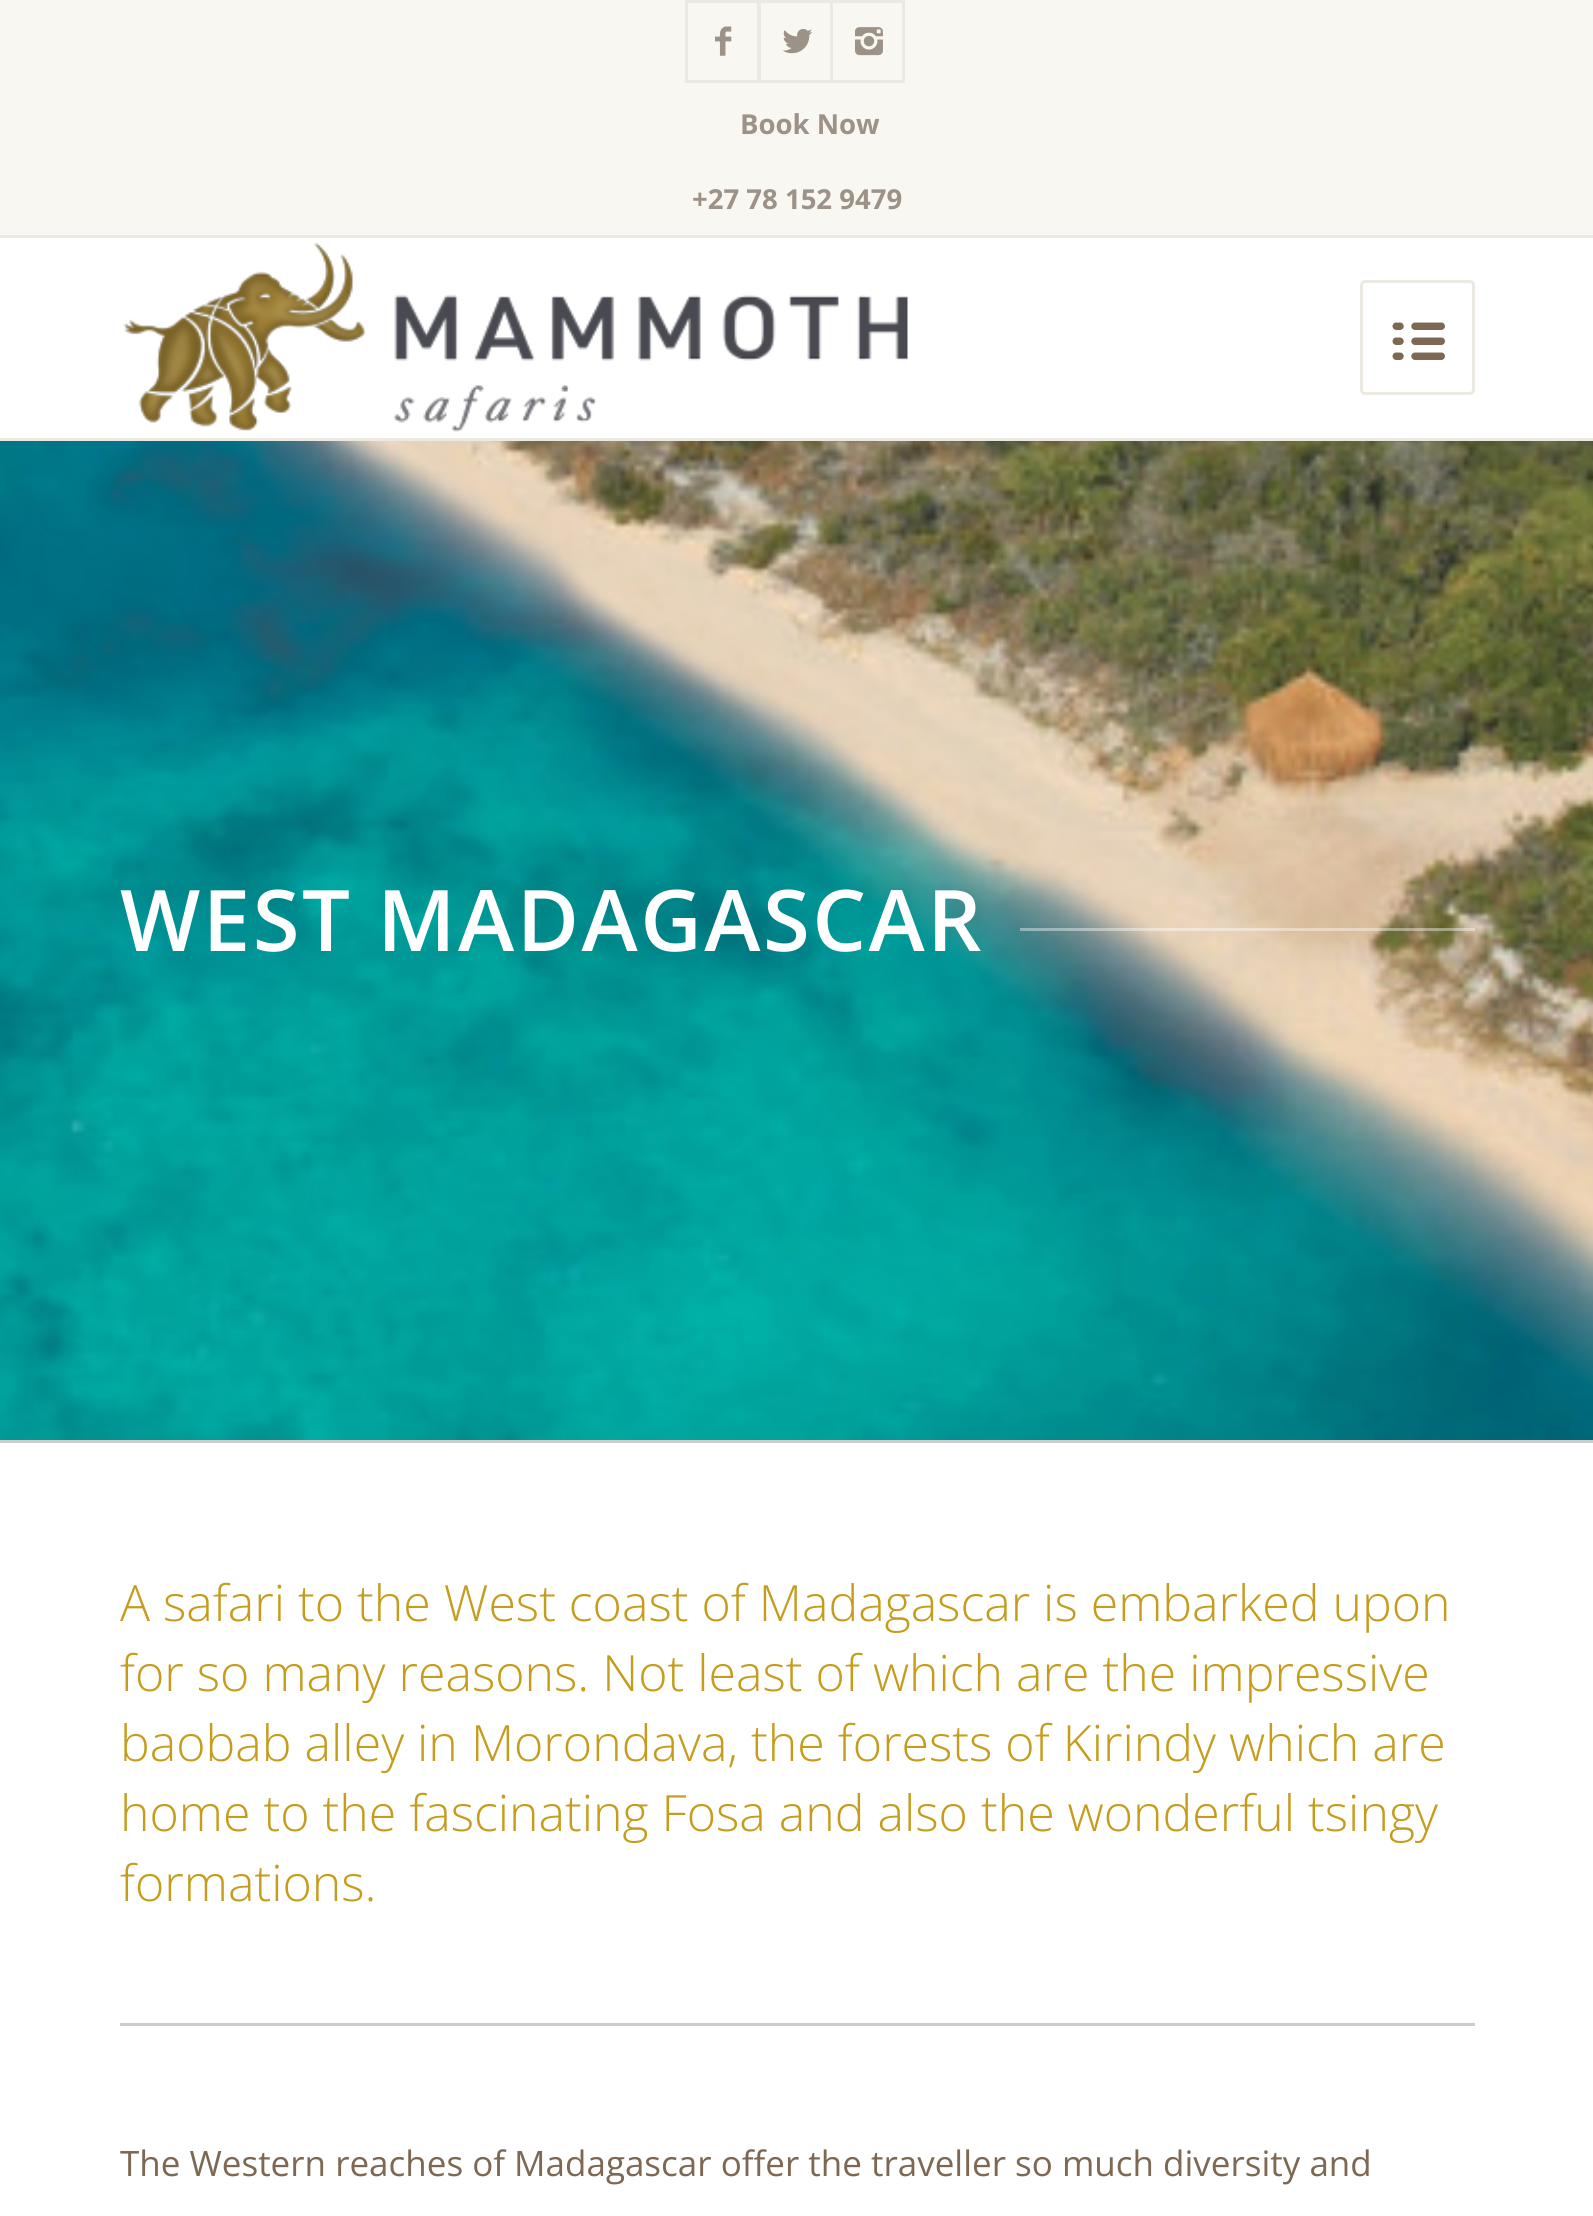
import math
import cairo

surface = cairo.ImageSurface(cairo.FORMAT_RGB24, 1593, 2216)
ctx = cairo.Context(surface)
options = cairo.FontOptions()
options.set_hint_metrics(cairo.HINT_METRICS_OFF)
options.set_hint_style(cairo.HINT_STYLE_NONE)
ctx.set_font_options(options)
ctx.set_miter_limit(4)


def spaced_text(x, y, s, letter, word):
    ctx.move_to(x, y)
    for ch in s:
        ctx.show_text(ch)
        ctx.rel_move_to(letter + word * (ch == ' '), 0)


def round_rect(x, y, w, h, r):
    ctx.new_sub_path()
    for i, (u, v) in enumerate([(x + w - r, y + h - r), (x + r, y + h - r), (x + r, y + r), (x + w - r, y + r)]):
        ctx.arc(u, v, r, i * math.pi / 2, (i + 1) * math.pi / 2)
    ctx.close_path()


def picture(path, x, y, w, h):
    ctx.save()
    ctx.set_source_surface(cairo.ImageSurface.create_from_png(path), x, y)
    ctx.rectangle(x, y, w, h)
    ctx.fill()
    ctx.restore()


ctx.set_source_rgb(1, 1, 1)
ctx.paint()
ctx.set_source_rgb(0.973, 0.965, 0.949)
ctx.rectangle(0, 0, 1593, 235)
ctx.fill()
ctx.set_source_rgb(0.922, 0.91, 0.886)
ctx.rectangle(0, 235, 1593, 3)
ctx.fill()
ctx.rectangle(686.5, 1.5, 72, 80)
ctx.set_line_width(3)
ctx.stroke()
picture("img1.png", 715, 26, 17, 30)
ctx.rectangle(759.5, 1.5, 72, 80)
ctx.stroke()
picture("img2.png", 782, 29, 31, 25)
ctx.rectangle(831.5, 1.5, 72, 80)
ctx.stroke()
picture("img3.png", 855, 27, 28, 29)
ctx.select_font_face("Open Sans", cairo.FONT_SLANT_NORMAL, cairo.FONT_WEIGHT_BOLD)
ctx.set_font_size(27.5)
ctx.set_source_rgb(0.612, 0.573, 0.533)
ctx.move_to(740, 134)
ctx.show_text("Book Now")
ctx.move_to(692, 209)
ctx.show_text("+27 78 152 9479")
ctx.set_source_rgb(0.922, 0.91, 0.886)
ctx.rectangle(0, 438, 1593, 3)
ctx.fill()
picture("img4.png", 123, 243, 785, 190)
round_rect(1361.5, 281.5, 112, 112, 3.5)
ctx.stroke()
picture("img5.png", 1392, 322, 53, 38)
picture("img6.png", 0, 441, 1593, 999)
ctx.select_font_face("Open Sans SemiBold")
ctx.set_font_size(85)
ctx.set_source_rgb(1, 1, 1)
spaced_text(120, 951, "WEST MADAGASCAR", 2.5, 0)
ctx.set_source_rgba(1, 1, 1, 0.4)
ctx.rectangle(1020, 928, 455, 3)
ctx.fill()
ctx.set_source_rgb(0.8, 0.8, 0.8)
ctx.rectangle(0, 1440, 1593, 3)
ctx.fill()
ctx.select_font_face("Open Sans Light")
ctx.set_font_size(50)
ctx.set_source_rgb(0.776, 0.612, 0.114)
ctx.move_to(120, 1621)
ctx.show_text("A safari to the West coast of Madagascar is embarked upon")
ctx.move_to(120, 1691)
ctx.show_text("for so many reasons. Not least of which are the impressive")
ctx.move_to(120, 1761)
ctx.show_text("baobab alley in Morondava, the forests of Kirindy which are")
ctx.move_to(120, 1831)
ctx.show_text("home to the fascinating Fosa and also the wonderful tsingy")
ctx.move_to(120, 1901)
ctx.show_text("formations.")
ctx.set_source_rgb(0.8, 0.8, 0.8)
ctx.rectangle(120, 2023, 1355, 3)
ctx.fill()
ctx.select_font_face("Open Sans")
ctx.set_font_size(35)
ctx.set_source_rgb(0.486, 0.408, 0.325)
ctx.move_to(120, 2176)
ctx.show_text("The Western reaches of Madagascar offer the traveller so much diversity and")
surface.write_to_png("page.png")
